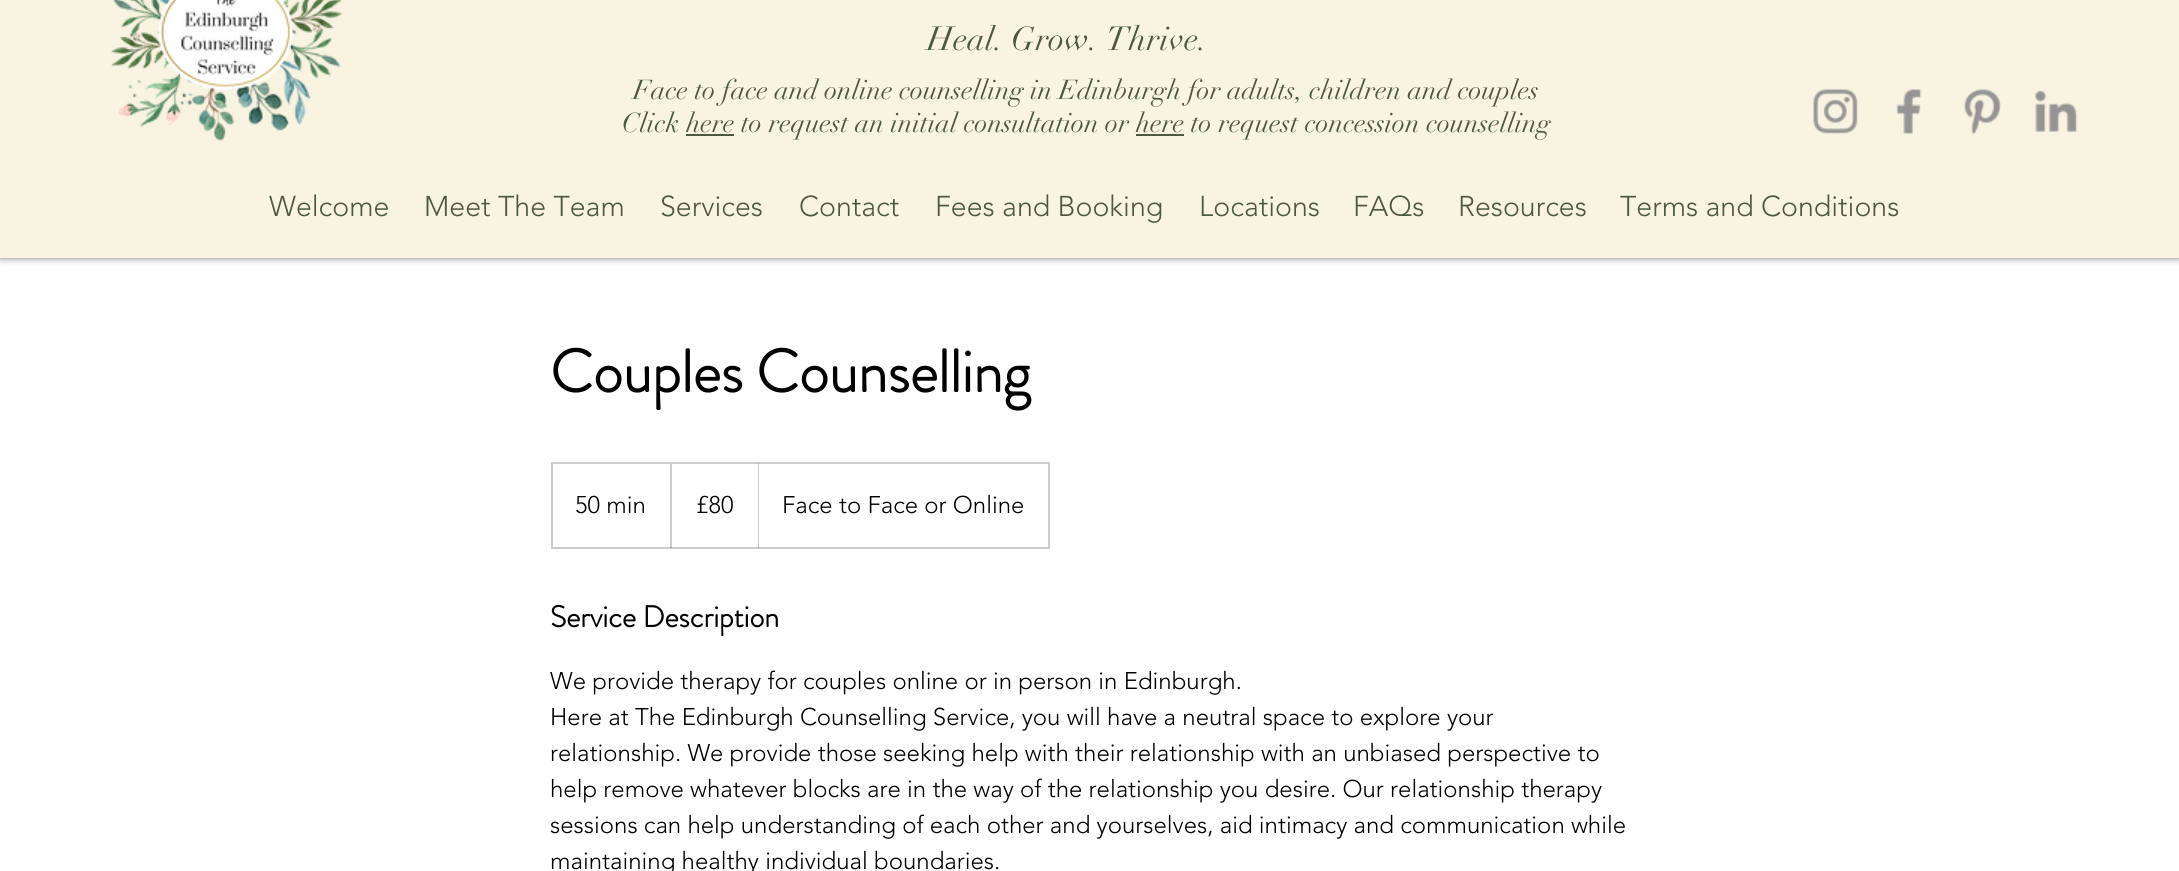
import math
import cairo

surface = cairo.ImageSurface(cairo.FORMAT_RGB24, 2179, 871)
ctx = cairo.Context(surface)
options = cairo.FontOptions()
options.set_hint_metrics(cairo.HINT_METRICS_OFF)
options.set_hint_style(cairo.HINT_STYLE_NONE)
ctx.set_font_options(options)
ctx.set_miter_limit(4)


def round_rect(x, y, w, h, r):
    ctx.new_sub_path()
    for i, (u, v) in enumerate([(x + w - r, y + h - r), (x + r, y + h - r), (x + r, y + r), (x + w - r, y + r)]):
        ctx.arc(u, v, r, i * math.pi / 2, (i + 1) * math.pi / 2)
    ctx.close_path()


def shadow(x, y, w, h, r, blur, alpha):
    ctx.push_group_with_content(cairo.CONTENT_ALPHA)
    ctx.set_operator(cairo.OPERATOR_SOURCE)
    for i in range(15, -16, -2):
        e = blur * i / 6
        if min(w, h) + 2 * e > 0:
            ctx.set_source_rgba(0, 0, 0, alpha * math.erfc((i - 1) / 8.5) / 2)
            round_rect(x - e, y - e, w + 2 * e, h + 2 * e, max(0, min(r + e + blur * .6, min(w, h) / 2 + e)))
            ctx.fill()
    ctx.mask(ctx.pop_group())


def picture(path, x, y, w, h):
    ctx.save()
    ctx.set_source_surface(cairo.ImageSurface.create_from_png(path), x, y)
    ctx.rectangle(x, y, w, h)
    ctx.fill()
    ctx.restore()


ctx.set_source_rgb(1, 1, 1)
ctx.paint()
ctx.set_source_rgb(0, 0, 0)
shadow(0, -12, 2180, 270, 0, 4, 0.5)
ctx.set_source_rgb(0.976, 0.957, 0.886)
ctx.rectangle(0, 0, 2179, 258)
ctx.fill()
picture("img1.png", 111, 0, 232, 141)
ctx.select_font_face("didot")
ctx.set_font_size(33)
ctx.set_source_rgb(0.302, 0.345, 0.263)
ctx.move_to(927, 50)
ctx.show_text("Heal. Grow. Thrive.")
ctx.set_font_size(27)
ctx.move_to(633, 99)
ctx.show_text("Face to face and online counselling in Edinburgh for adults, children and couples")
ctx.move_to(622, 132)
ctx.show_text("Click here to request an initial consultation or here to request concession counselling")
ctx.rectangle(686, 134, 48, 2)
ctx.fill()
ctx.rectangle(1136, 134, 48, 2)
ctx.fill()
picture("img2.png", 1813, 89, 45, 45)
picture("img3.png", 1896, 89, 26, 46)
picture("img4.png", 1963, 89, 38, 46)
picture("img5.png", 2035, 90, 43, 42)
ctx.select_font_face("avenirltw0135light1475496 Light")
ctx.set_font_size(28.5)
ctx.move_to(269, 216)
ctx.show_text("Welcome")
ctx.move_to(424, 216)
ctx.show_text("Meet The Team")
ctx.move_to(660, 216)
ctx.show_text("Services")
ctx.move_to(799, 216)
ctx.show_text("Contact")
ctx.move_to(935, 216)
ctx.show_text("Fees and Booking")
ctx.move_to(1199, 216)
ctx.show_text("Locations")
ctx.move_to(1353, 216)
ctx.show_text("FAQs")
ctx.move_to(1458, 216)
ctx.show_text("Resources")
ctx.move_to(1620, 216)
ctx.show_text("Terms and Conditions")
ctx.select_font_face("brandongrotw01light", cairo.FONT_SLANT_NORMAL, cairo.FONT_WEIGHT_BOLD)
ctx.set_font_size(60)
ctx.set_source_rgb(0, 0, 0)
ctx.move_to(550, 392)
ctx.show_text("Couples Counselling")
ctx.rectangle(552, 463, 497, 85)
ctx.set_source_rgb(0.8, 0.8, 0.8)
ctx.stroke()
ctx.select_font_face("avenirltw0135light1475496 Light")
ctx.set_font_size(24)
ctx.set_source_rgb(0, 0, 0)
ctx.move_to(575, 513)
ctx.show_text("50 min")
ctx.save()
ctx.rectangle(552, 464, 497, 84)
ctx.clip()
ctx.set_source_rgba(0, 0, 0, 0.2)
ctx.new_path()
ctx.move_to(670, 548)
ctx.line_to(670, 462)
ctx.line_to(672, 464)
ctx.line_to(672, 548)
ctx.close_path()
ctx.fill()
ctx.restore()
ctx.move_to(696, 513)
ctx.show_text("£80")
ctx.set_source_rgba(0, 0, 0, 0.2)
ctx.new_path()
ctx.move_to(758, 548)
ctx.line_to(758, 462)
ctx.line_to(759, 464)
ctx.line_to(759, 548)
ctx.close_path()
ctx.fill()
ctx.set_source_rgb(0, 0, 0)
ctx.move_to(782, 513)
ctx.show_text("Face to Face or Online")
ctx.select_font_face("brandongrotw01light", cairo.FONT_SLANT_NORMAL, cairo.FONT_WEIGHT_BOLD)
ctx.set_font_size(30)
ctx.move_to(550, 627)
ctx.show_text("Service Description")
ctx.select_font_face("avenirltw0135light1475496 Light")
ctx.set_font_size(24)
ctx.move_to(550, 689)
ctx.show_text("We provide therapy for couples online or in person in Edinburgh.")
ctx.move_to(550, 725)
ctx.show_text("Here at The Edinburgh Counselling Service, you will have a neutral space to explore your")
ctx.move_to(550, 761)
ctx.show_text("relationship. We provide those seeking help with their relationship with an unbiased perspective to")
ctx.move_to(550, 797)
ctx.show_text("help remove whatever blocks are in the way of the relationship you desire. Our relationship therapy")
ctx.move_to(550, 833)
ctx.show_text("sessions can help understanding of each other and yourselves, aid intimacy and communication while")
ctx.move_to(550, 869)
ctx.show_text("maintaining healthy individual boundaries.")
surface.write_to_png("page.png")
